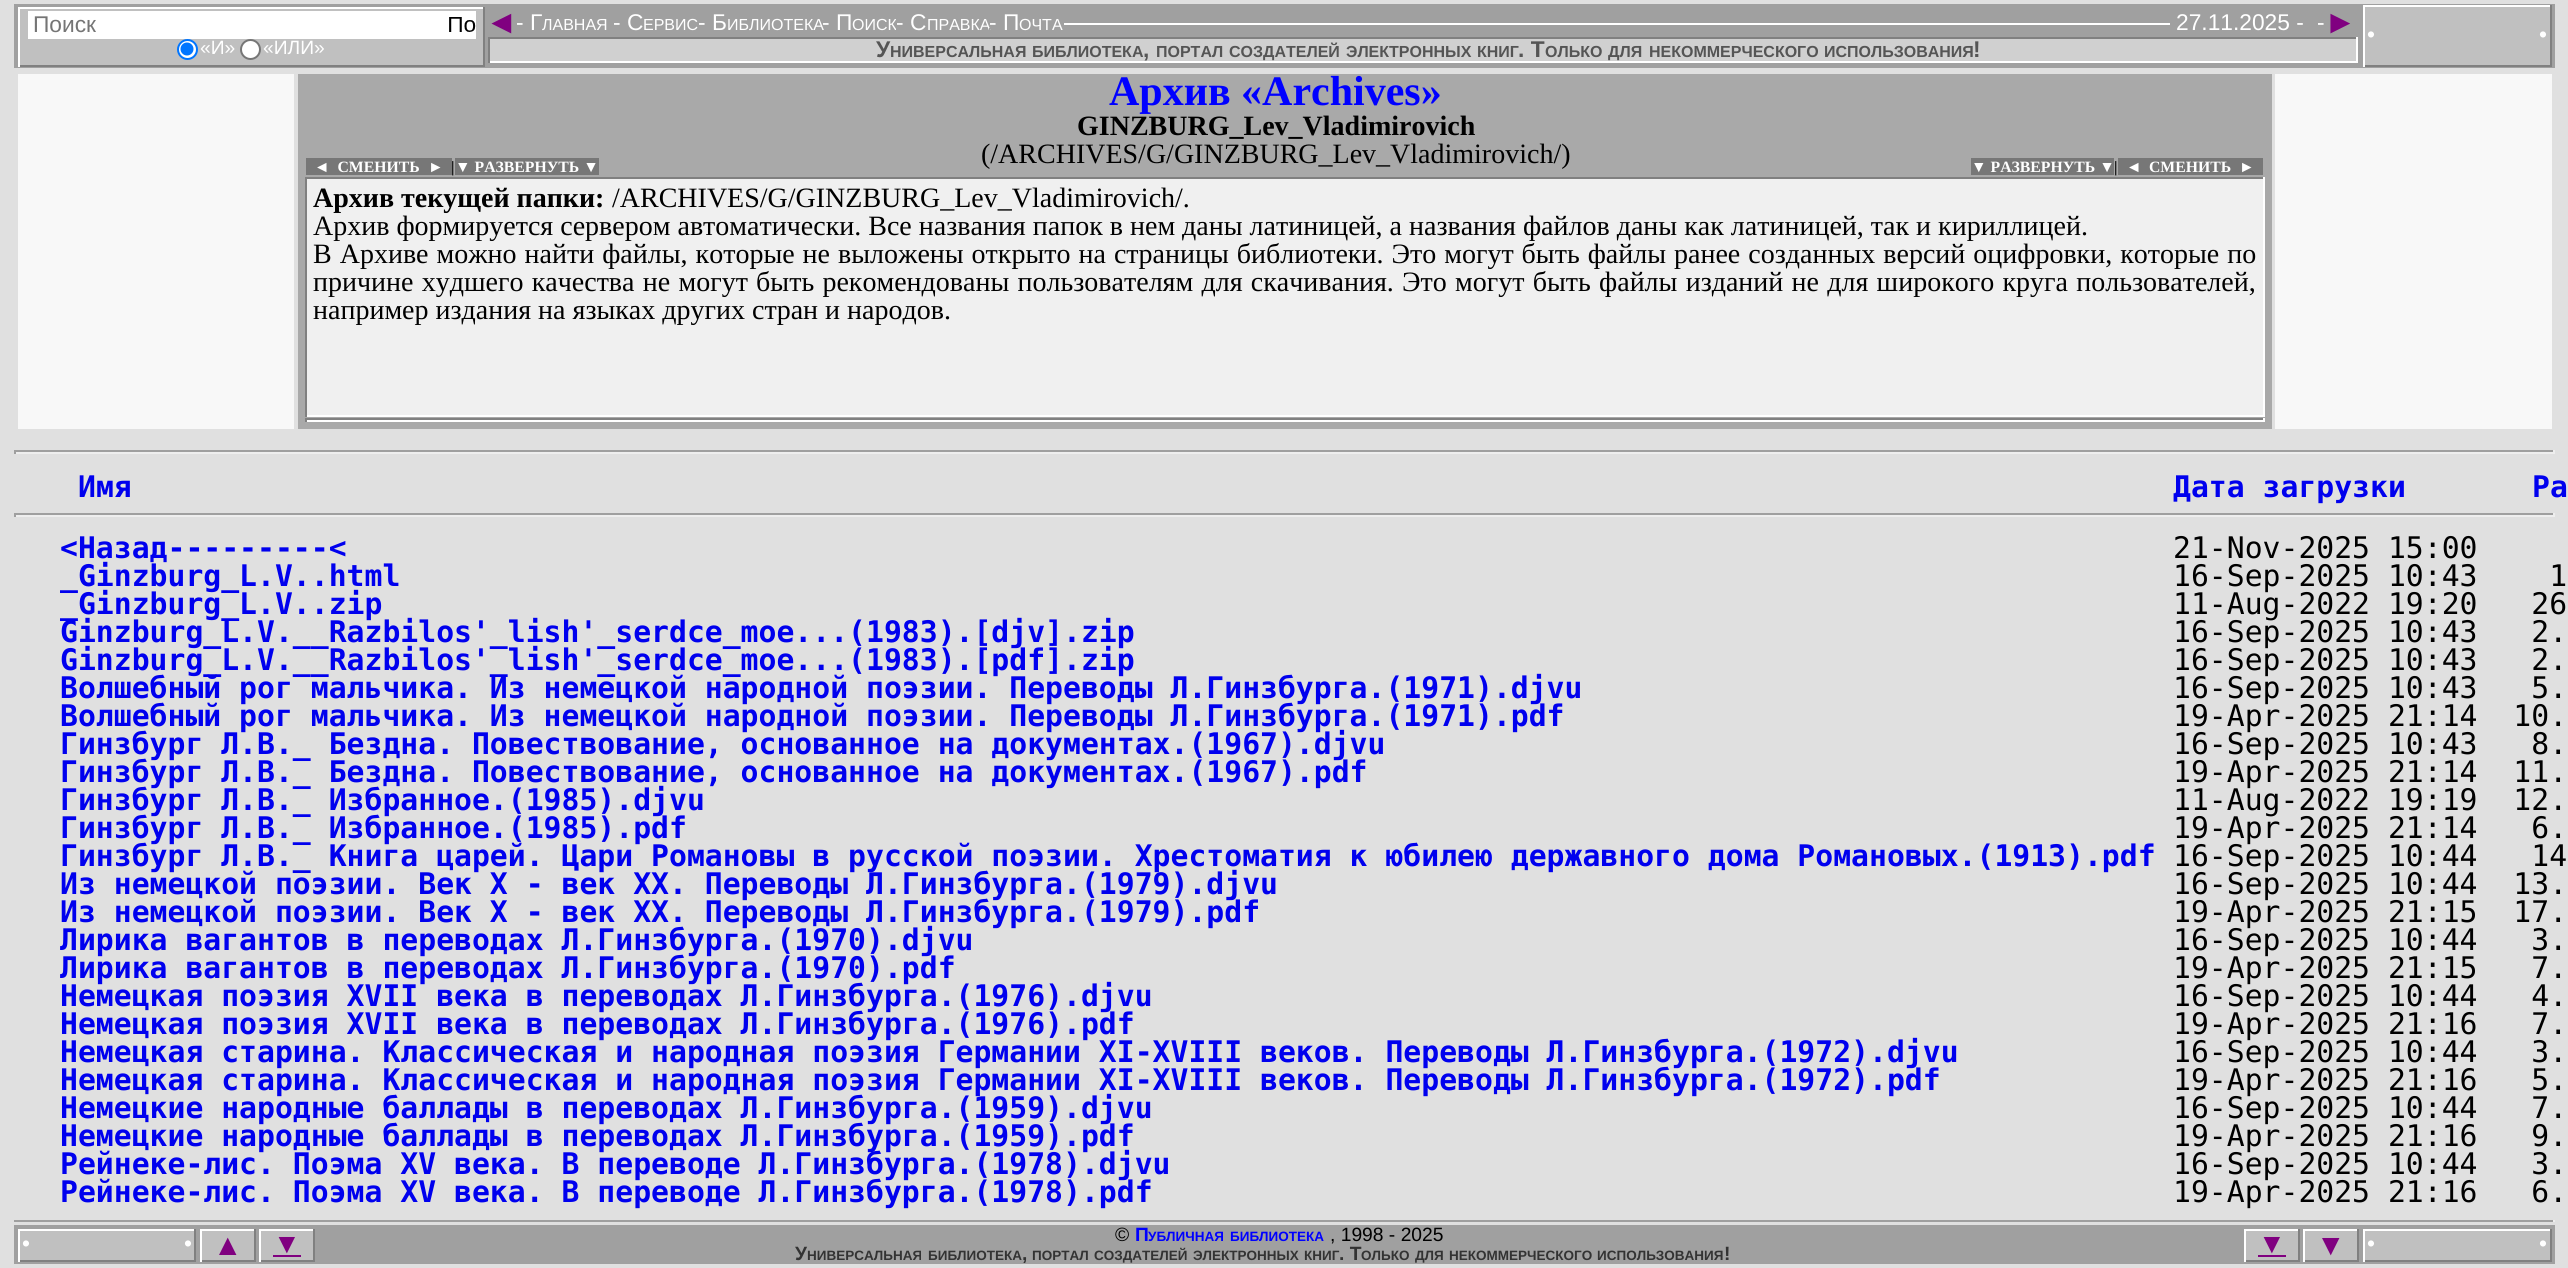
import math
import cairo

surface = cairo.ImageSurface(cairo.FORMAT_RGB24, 2568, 1268)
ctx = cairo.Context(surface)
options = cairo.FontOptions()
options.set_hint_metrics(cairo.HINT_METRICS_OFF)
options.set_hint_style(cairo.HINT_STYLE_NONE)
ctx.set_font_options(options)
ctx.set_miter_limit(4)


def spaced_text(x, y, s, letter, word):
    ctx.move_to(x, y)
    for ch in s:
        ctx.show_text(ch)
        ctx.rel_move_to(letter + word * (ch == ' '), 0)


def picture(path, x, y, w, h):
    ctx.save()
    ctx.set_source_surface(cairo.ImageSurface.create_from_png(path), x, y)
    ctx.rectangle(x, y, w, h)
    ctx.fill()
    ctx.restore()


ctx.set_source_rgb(0.878, 0.878, 0.878)
ctx.paint()
ctx.set_source_rgb(0.627, 0.627, 0.627)
ctx.rectangle(14, 4, 2541, 64)
ctx.fill()
ctx.set_source_rgb(0.753, 0.753, 0.753)
ctx.rectangle(20, 9, 463, 56)
ctx.fill()
ctx.set_source_rgb(1, 1, 1)
ctx.rectangle(18, 7, 467, 2)
ctx.fill()
ctx.set_source_rgb(0.502, 0.502, 0.502)
ctx.rectangle(483, 7, 2, 60)
ctx.fill()
ctx.rectangle(18, 65, 467, 2)
ctx.fill()
ctx.set_source_rgb(1, 1, 1)
ctx.rectangle(18, 7, 2, 60)
ctx.fill()
ctx.rectangle(28, 11, 448, 28)
ctx.fill()
ctx.select_font_face("Liberation Sans")
ctx.set_font_size(22.75)
ctx.set_source_rgb(0.459, 0.459, 0.459)
ctx.move_to(33, 32)
ctx.show_text("Поиск")
picture("img1.png", 449, 17, 27, 15)
ctx.set_source_rgb(1, 1, 1)
ctx.arc(187.5, 49.5, 9.5, 0, 2 * math.pi)
ctx.fill_preserve()
ctx.set_source_rgb(0, 0.459, 1)
ctx.stroke()
ctx.arc(187, 49, 6.5, 0, 2 * math.pi)
ctx.fill()
ctx.set_font_size(19.25)
ctx.set_source_rgb(1, 1, 1)
ctx.move_to(200, 54)
ctx.show_text("«И»")
ctx.new_path()
ctx.arc(250.5, 49.5, 9.5, 0, 2 * math.pi)
ctx.fill_preserve()
ctx.set_source_rgb(0.463, 0.463, 0.463)
ctx.stroke()
ctx.set_source_rgb(1, 1, 1)
ctx.move_to(263, 54)
ctx.show_text("«ИЛИ»")
ctx.set_font_size(33)
ctx.set_source_rgb(0.502, 0, 0.502)
ctx.move_to(485, 33)
ctx.show_text("◄")
ctx.set_font_size(22.75)
ctx.set_source_rgb(1, 1, 1)
ctx.move_to(516, 30)
ctx.show_text("- Г")
ctx.set_font_size(16)
ctx.move_to(542, 30)
ctx.show_text("ЛАВНАЯ")
ctx.set_font_size(22.75)
ctx.move_to(613, 30)
ctx.show_text("- С")
ctx.set_font_size(16)
ctx.move_to(643, 30)
ctx.show_text("ЕРВИС")
ctx.set_font_size(22.75)
ctx.move_to(698, 30)
ctx.show_text("- Б")
ctx.set_font_size(16)
ctx.move_to(727, 30)
ctx.show_text("ИБЛИОТЕКА")
ctx.set_font_size(22.75)
ctx.move_to(822, 30)
ctx.show_text("- П")
ctx.set_font_size(16)
ctx.move_to(852, 30)
ctx.show_text("ОИСК")
ctx.set_source_rgb(0.627, 0.627, 0.627)
ctx.rectangle(896, 19, 1, 11)
ctx.fill()
ctx.set_font_size(22.75)
ctx.set_source_rgb(1, 1, 1)
ctx.move_to(896, 30)
ctx.show_text("- С")
ctx.set_font_size(16)
ctx.move_to(927, 30)
ctx.show_text("ПРАВКА")
ctx.set_source_rgb(0.627, 0.627, 0.627)
ctx.rectangle(989, 28, 1, 2)
ctx.fill()
ctx.set_font_size(22.75)
ctx.set_source_rgb(1, 1, 1)
ctx.move_to(989, 30)
ctx.show_text("- П")
ctx.rectangle(1062, 23, 1108, 2)
ctx.fill()
ctx.set_source_rgb(0.627, 0.627, 0.627)
ctx.rectangle(1062, 21, 2, 4)
ctx.fill()
ctx.set_font_size(16)
ctx.set_source_rgb(1, 1, 1)
ctx.move_to(1019, 30)
ctx.show_text("ОЧТА")
ctx.set_font_size(22.75)
ctx.move_to(2176, 30)
ctx.show_text("27.11.2025 -")
ctx.move_to(2317, 30)
ctx.show_text("-")
ctx.set_font_size(33)
ctx.set_source_rgb(0.502, 0, 0.502)
ctx.move_to(2324, 33)
ctx.show_text("►")
ctx.set_source_rgb(0.816, 0.816, 0.816)
ctx.rectangle(490, 39, 1866, 22)
ctx.fill()
ctx.set_source_rgb(0.502, 0.502, 0.502)
ctx.rectangle(488, 37, 1869, 2)
ctx.fill()
ctx.set_source_rgb(1, 1, 1)
ctx.rectangle(2356, 37, 2, 26)
ctx.fill()
ctx.rectangle(488, 61, 1869, 2)
ctx.fill()
ctx.set_source_rgb(0.502, 0.502, 0.502)
ctx.rectangle(488, 37, 2, 26)
ctx.fill()
ctx.select_font_face("Liberation Sans", cairo.FONT_SLANT_NORMAL, cairo.FONT_WEIGHT_BOLD)
ctx.set_font_size(22.75)
ctx.set_source_rgb(0.333, 0.333, 0.333)
ctx.move_to(876, 57)
ctx.show_text("У")
ctx.set_font_size(16)
ctx.move_to(890, 57)
ctx.show_text("НИВЕРСАЛЬНАЯ")
ctx.move_to(1032, 57)
ctx.show_text("БИБЛИОТЕКА")
ctx.set_font_size(22.75)
ctx.move_to(1143, 57)
ctx.show_text(",")
ctx.set_font_size(16)
ctx.move_to(1156, 57)
ctx.show_text("ПОРТАЛ")
ctx.move_to(1229, 57)
ctx.show_text("СОЗДАТЕЛЕЙ")
ctx.move_to(1346, 57)
ctx.show_text("ЭЛЕКТРОННЫХ")
ctx.move_to(1477, 57)
ctx.show_text("КНИГ")
ctx.set_font_size(22.75)
ctx.move_to(1518, 57)
ctx.show_text(". Т")
ctx.set_font_size(16)
ctx.move_to(1545, 57)
ctx.show_text("ОЛЬКО")
ctx.move_to(1608, 57)
ctx.show_text("ДЛЯ")
ctx.move_to(1649, 57)
ctx.show_text("НЕКОММЕРЧЕСКОГО")
ctx.move_to(1824, 57)
ctx.show_text("ИСПОЛЬЗОВАНИЯ")
ctx.set_font_size(22.75)
ctx.move_to(1973, 57)
ctx.show_text("!")
ctx.set_source_rgb(0.753, 0.753, 0.753)
ctx.rectangle(2365, 7, 185, 58)
ctx.fill()
ctx.set_source_rgb(1, 1, 1)
ctx.rectangle(2363, 5, 189, 2)
ctx.fill()
ctx.set_source_rgb(0.502, 0.502, 0.502)
ctx.rectangle(2550, 5, 2, 62)
ctx.fill()
ctx.rectangle(2363, 65, 189, 2)
ctx.fill()
ctx.set_source_rgb(1, 1, 1)
ctx.rectangle(2363, 5, 2, 62)
ctx.fill()
ctx.select_font_face("Liberation Sans")
ctx.move_to(2367, 42)
ctx.show_text("•")
ctx.move_to(2539, 42)
ctx.show_text("•")
ctx.set_source_rgb(0.969, 0.969, 0.969)
ctx.rectangle(18, 74, 276, 355)
ctx.fill()
ctx.set_source_rgb(0.663, 0.663, 0.663)
ctx.rectangle(298, 74, 1974, 355)
ctx.fill()
ctx.select_font_face("Liberation Serif", cairo.FONT_SLANT_NORMAL, cairo.FONT_WEIGHT_BOLD)
ctx.set_font_size(42)
ctx.set_source_rgb(0, 0, 1)
ctx.move_to(1109, 105)
ctx.show_text("Архив «Archives»")
ctx.set_font_size(28)
ctx.set_source_rgb(0, 0, 0)
ctx.move_to(1077, 135)
ctx.show_text("GINZBURG_Lev_Vladimirovich")
ctx.set_source_rgb(0.467, 0.467, 0.467)
ctx.rectangle(306, 158, 146, 17)
ctx.fill()
ctx.set_font_size(15.75)
ctx.set_source_rgb(1, 1, 1)
ctx.move_to(314, 172)
ctx.show_text("◄  СМЕНИТЬ")
ctx.move_to(428, 172)
ctx.show_text("►")
ctx.set_source_rgb(0, 0, 0)
ctx.move_to(451, 172)
ctx.show_text("|")
ctx.set_source_rgb(0.467, 0.467, 0.467)
ctx.rectangle(455, 158, 144, 17)
ctx.fill()
ctx.set_source_rgb(1, 1, 1)
ctx.move_to(455, 172)
ctx.show_text("▼ РАЗВЕРНУТЬ ▼")
ctx.select_font_face("Liberation Serif")
ctx.set_font_size(28)
ctx.set_source_rgb(0, 0, 0)
ctx.move_to(981, 163)
ctx.show_text("(/ARCHIVES/G/GINZBURG_Lev_Vladimirovich/)")
ctx.set_source_rgb(0.467, 0.467, 0.467)
ctx.rectangle(1971, 158, 143, 17)
ctx.fill()
ctx.select_font_face("Liberation Serif", cairo.FONT_SLANT_NORMAL, cairo.FONT_WEIGHT_BOLD)
ctx.set_font_size(15.75)
ctx.set_source_rgb(1, 1, 1)
ctx.move_to(1971, 172)
ctx.show_text("▼ РАЗВЕРНУТЬ ▼")
ctx.set_source_rgb(0, 0, 0)
ctx.move_to(2114, 172)
ctx.show_text("|")
ctx.set_source_rgb(0.467, 0.467, 0.467)
ctx.rectangle(2118, 158, 145, 17)
ctx.fill()
ctx.set_source_rgb(1, 1, 1)
ctx.move_to(2126, 172)
ctx.show_text("◄")
ctx.move_to(2149, 172)
ctx.show_text("СМЕНИТЬ  ►")
ctx.set_source_rgb(0.941, 0.941, 0.941)
ctx.rectangle(307, 179, 1956, 236)
ctx.fill()
ctx.set_source_rgb(0.502, 0.502, 0.502)
ctx.rectangle(305, 177, 1960, 2)
ctx.fill()
ctx.set_source_rgb(1, 1, 1)
ctx.rectangle(2263, 177, 2, 240)
ctx.fill()
ctx.rectangle(305, 415, 1960, 2)
ctx.fill()
ctx.set_source_rgb(0.502, 0.502, 0.502)
ctx.rectangle(305, 177, 2, 240)
ctx.fill()
ctx.set_font_size(28)
ctx.set_source_rgb(0, 0, 0)
ctx.move_to(313, 207)
ctx.show_text("Архив текущей папки:")
ctx.select_font_face("Liberation Serif")
ctx.move_to(612, 207)
ctx.show_text("/ARCHIVES/G/GINZBURG_Lev_Vladimirovich/.")
ctx.move_to(313, 235)
ctx.show_text("Архив формируется сервером автоматически. Все названия папок в нем даны латиницей, а названия файлов даны как латиницей, так и кириллицей.")
spaced_text(313, 263, "В Архиве можно найти файлы, которые не выложены открыто на страницы библиотеки. Это могут быть файлы ранее созданных версий оцифровки, которые по", 0, 1)
spaced_text(313, 291, "причине худшего качества не могут быть рекомендованы пользователям для скачивания. Это могут быть файлы изданий не для широкого круга пользователей,", 0, 1.25)
ctx.move_to(313, 319)
ctx.show_text("например издания на языках других стран и народов.")
ctx.set_source_rgb(0.502, 0.502, 0.502)
ctx.rectangle(305, 418, 1960, 2)
ctx.fill()
ctx.set_source_rgb(1, 1, 1)
ctx.rectangle(2263, 418, 2, 4)
ctx.fill()
ctx.rectangle(305, 420, 1960, 2)
ctx.fill()
ctx.set_source_rgb(0.502, 0.502, 0.502)
ctx.rectangle(305, 418, 2, 4)
ctx.fill()
ctx.set_source_rgb(0.969, 0.969, 0.969)
ctx.rectangle(2275, 74, 277, 355)
ctx.fill()
ctx.set_source_rgb(0.624, 0.624, 0.624)
ctx.rectangle(14, 450, 2541, 2)
ctx.fill()
ctx.set_source_rgb(0.933, 0.933, 0.933)
ctx.rectangle(2553, 450, 2, 4)
ctx.fill()
ctx.rectangle(14, 452, 2541, 2)
ctx.fill()
ctx.set_source_rgb(0.624, 0.624, 0.624)
ctx.rectangle(14, 450, 2, 4)
ctx.fill()
ctx.select_font_face("DejaVu Sans Mono", cairo.FONT_SLANT_NORMAL, cairo.FONT_WEIGHT_BOLD)
ctx.set_font_size(29.75)
ctx.set_source_rgb(0, 0, 0.933)
ctx.move_to(78, 497)
ctx.show_text("Имя")
ctx.move_to(2173, 497)
ctx.show_text("Дата загрузки")
ctx.move_to(2532, 497)
ctx.show_text("Ра")
ctx.set_source_rgb(0.624, 0.624, 0.624)
ctx.rectangle(14, 513, 2541, 2)
ctx.fill()
ctx.set_source_rgb(0.933, 0.933, 0.933)
ctx.rectangle(2553, 513, 2, 4)
ctx.fill()
ctx.rectangle(14, 515, 2541, 2)
ctx.fill()
ctx.set_source_rgb(0.624, 0.624, 0.624)
ctx.rectangle(14, 513, 2, 4)
ctx.fill()
ctx.set_source_rgb(0, 0, 0.933)
ctx.move_to(60, 558)
ctx.show_text("<Назад---------<")
ctx.select_font_face("DejaVu Sans Mono")
ctx.set_source_rgb(0, 0, 0)
ctx.move_to(2173, 558)
ctx.show_text("21-Nov-2025 15:00")
ctx.select_font_face("DejaVu Sans Mono", cairo.FONT_SLANT_NORMAL, cairo.FONT_WEIGHT_BOLD)
ctx.set_source_rgb(0, 0, 0.933)
ctx.move_to(60, 586)
ctx.show_text("_Ginzburg_L.V..html")
ctx.select_font_face("DejaVu Sans Mono")
ctx.set_source_rgb(0, 0, 0)
ctx.move_to(2173, 586)
ctx.show_text("16-Sep-2025 10:43    1")
ctx.select_font_face("DejaVu Sans Mono", cairo.FONT_SLANT_NORMAL, cairo.FONT_WEIGHT_BOLD)
ctx.set_source_rgb(0, 0, 0.933)
ctx.move_to(60, 614)
ctx.show_text("_Ginzburg_L.V..zip")
ctx.select_font_face("DejaVu Sans Mono")
ctx.set_source_rgb(0, 0, 0)
ctx.move_to(2173, 614)
ctx.show_text("11-Aug-2022 19:20   26")
ctx.select_font_face("DejaVu Sans Mono", cairo.FONT_SLANT_NORMAL, cairo.FONT_WEIGHT_BOLD)
ctx.set_source_rgb(0, 0, 0.933)
ctx.move_to(60, 642)
ctx.show_text("Ginzburg_L.V.__Razbilos'_lish'_serdce_moe...(1983).[djv].zip")
ctx.select_font_face("DejaVu Sans Mono")
ctx.set_source_rgb(0, 0, 0)
ctx.move_to(2173, 642)
ctx.show_text("16-Sep-2025 10:43   2.")
ctx.select_font_face("DejaVu Sans Mono", cairo.FONT_SLANT_NORMAL, cairo.FONT_WEIGHT_BOLD)
ctx.set_source_rgb(0, 0, 0.933)
ctx.move_to(60, 670)
ctx.show_text("Ginzburg_L.V.__Razbilos'_lish'_serdce_moe...(1983).[pdf].zip")
ctx.select_font_face("DejaVu Sans Mono")
ctx.set_source_rgb(0, 0, 0)
ctx.move_to(2173, 670)
ctx.show_text("16-Sep-2025 10:43   2.")
ctx.select_font_face("DejaVu Sans Mono", cairo.FONT_SLANT_NORMAL, cairo.FONT_WEIGHT_BOLD)
ctx.set_source_rgb(0, 0, 0.933)
ctx.move_to(60, 698)
ctx.show_text("Волшебный рог мальчика. Из немецкой народной поэзии. Переводы Л.Гинзбурга.(1971).djvu")
ctx.select_font_face("DejaVu Sans Mono")
ctx.set_source_rgb(0, 0, 0)
ctx.move_to(2173, 698)
ctx.show_text("16-Sep-2025 10:43   5.")
ctx.select_font_face("DejaVu Sans Mono", cairo.FONT_SLANT_NORMAL, cairo.FONT_WEIGHT_BOLD)
ctx.set_source_rgb(0, 0, 0.933)
ctx.move_to(60, 726)
ctx.show_text("Волшебный рог мальчика. Из немецкой народной поэзии. Переводы Л.Гинзбурга.(1971).pdf")
ctx.select_font_face("DejaVu Sans Mono")
ctx.set_source_rgb(0, 0, 0)
ctx.move_to(2173, 726)
ctx.show_text("19-Apr-2025 21:14  10.")
ctx.select_font_face("DejaVu Sans Mono", cairo.FONT_SLANT_NORMAL, cairo.FONT_WEIGHT_BOLD)
ctx.set_source_rgb(0, 0, 0.933)
ctx.move_to(60, 754)
ctx.show_text("Гинзбург Л.В._ Бездна. Повествование, основанное на документах.(1967).djvu")
ctx.select_font_face("DejaVu Sans Mono")
ctx.set_source_rgb(0, 0, 0)
ctx.move_to(2173, 754)
ctx.show_text("16-Sep-2025 10:43   8.")
ctx.select_font_face("DejaVu Sans Mono", cairo.FONT_SLANT_NORMAL, cairo.FONT_WEIGHT_BOLD)
ctx.set_source_rgb(0, 0, 0.933)
ctx.move_to(60, 782)
ctx.show_text("Гинзбург Л.В._ Бездна. Повествование, основанное на документах.(1967).pdf")
ctx.select_font_face("DejaVu Sans Mono")
ctx.set_source_rgb(0, 0, 0)
ctx.move_to(2173, 782)
ctx.show_text("19-Apr-2025 21:14  11.")
ctx.select_font_face("DejaVu Sans Mono", cairo.FONT_SLANT_NORMAL, cairo.FONT_WEIGHT_BOLD)
ctx.set_source_rgb(0, 0, 0.933)
ctx.move_to(60, 810)
ctx.show_text("Гинзбург Л.В._ Избранное.(1985).djvu")
ctx.select_font_face("DejaVu Sans Mono")
ctx.set_source_rgb(0, 0, 0)
ctx.move_to(2173, 810)
ctx.show_text("11-Aug-2022 19:19  12.")
ctx.select_font_face("DejaVu Sans Mono", cairo.FONT_SLANT_NORMAL, cairo.FONT_WEIGHT_BOLD)
ctx.set_source_rgb(0, 0, 0.933)
ctx.move_to(60, 838)
ctx.show_text("Гинзбург Л.В._ Избранное.(1985).pdf")
ctx.select_font_face("DejaVu Sans Mono")
ctx.set_source_rgb(0, 0, 0)
ctx.move_to(2173, 838)
ctx.show_text("19-Apr-2025 21:14   6.")
ctx.select_font_face("DejaVu Sans Mono", cairo.FONT_SLANT_NORMAL, cairo.FONT_WEIGHT_BOLD)
ctx.set_source_rgb(0, 0, 0.933)
ctx.move_to(60, 866)
ctx.show_text("Гинзбург Л.В._ Книга царей. Цари Романовы в русской поэзии. Хрестоматия к юбилею державного дома Романовых.(1913).pdf")
ctx.select_font_face("DejaVu Sans Mono")
ctx.set_source_rgb(0, 0, 0)
ctx.move_to(2173, 866)
ctx.show_text("16-Sep-2025 10:44   14")
ctx.select_font_face("DejaVu Sans Mono", cairo.FONT_SLANT_NORMAL, cairo.FONT_WEIGHT_BOLD)
ctx.set_source_rgb(0, 0, 0.933)
ctx.move_to(60, 894)
ctx.show_text("Из немецкой поэзии. Век X - век XX. Переводы Л.Гинзбурга.(1979).djvu")
ctx.select_font_face("DejaVu Sans Mono")
ctx.set_source_rgb(0, 0, 0)
ctx.move_to(2173, 894)
ctx.show_text("16-Sep-2025 10:44  13.")
ctx.select_font_face("DejaVu Sans Mono", cairo.FONT_SLANT_NORMAL, cairo.FONT_WEIGHT_BOLD)
ctx.set_source_rgb(0, 0, 0.933)
ctx.move_to(60, 922)
ctx.show_text("Из немецкой поэзии. Век X - век XX. Переводы Л.Гинзбурга.(1979).pdf")
ctx.select_font_face("DejaVu Sans Mono")
ctx.set_source_rgb(0, 0, 0)
ctx.move_to(2173, 922)
ctx.show_text("19-Apr-2025 21:15  17.")
ctx.select_font_face("DejaVu Sans Mono", cairo.FONT_SLANT_NORMAL, cairo.FONT_WEIGHT_BOLD)
ctx.set_source_rgb(0, 0, 0.933)
ctx.move_to(60, 950)
ctx.show_text("Лирика вагантов в переводах Л.Гинзбурга.(1970).djvu")
ctx.select_font_face("DejaVu Sans Mono")
ctx.set_source_rgb(0, 0, 0)
ctx.move_to(2173, 950)
ctx.show_text("16-Sep-2025 10:44   3.")
ctx.select_font_face("DejaVu Sans Mono", cairo.FONT_SLANT_NORMAL, cairo.FONT_WEIGHT_BOLD)
ctx.set_source_rgb(0, 0, 0.933)
ctx.move_to(60, 978)
ctx.show_text("Лирика вагантов в переводах Л.Гинзбурга.(1970).pdf")
ctx.select_font_face("DejaVu Sans Mono")
ctx.set_source_rgb(0, 0, 0)
ctx.move_to(2173, 978)
ctx.show_text("19-Apr-2025 21:15   7.")
ctx.select_font_face("DejaVu Sans Mono", cairo.FONT_SLANT_NORMAL, cairo.FONT_WEIGHT_BOLD)
ctx.set_source_rgb(0, 0, 0.933)
ctx.move_to(60, 1006)
ctx.show_text("Немецкая поэзия XVII века в переводах Л.Гинзбурга.(1976).djvu")
ctx.select_font_face("DejaVu Sans Mono")
ctx.set_source_rgb(0, 0, 0)
ctx.move_to(2173, 1006)
ctx.show_text("16-Sep-2025 10:44   4.")
ctx.select_font_face("DejaVu Sans Mono", cairo.FONT_SLANT_NORMAL, cairo.FONT_WEIGHT_BOLD)
ctx.set_source_rgb(0, 0, 0.933)
ctx.move_to(60, 1034)
ctx.show_text("Немецкая поэзия XVII века в переводах Л.Гинзбурга.(1976).pdf")
ctx.select_font_face("DejaVu Sans Mono")
ctx.set_source_rgb(0, 0, 0)
ctx.move_to(2173, 1034)
ctx.show_text("19-Apr-2025 21:16   7.")
ctx.select_font_face("DejaVu Sans Mono", cairo.FONT_SLANT_NORMAL, cairo.FONT_WEIGHT_BOLD)
ctx.set_source_rgb(0, 0, 0.933)
ctx.move_to(60, 1062)
ctx.show_text("Немецкая старина. Классическая и народная поэзия Германии XI-XVIII веков. Переводы Л.Гинзбурга.(1972).djvu")
ctx.select_font_face("DejaVu Sans Mono")
ctx.set_source_rgb(0, 0, 0)
ctx.move_to(2173, 1062)
ctx.show_text("16-Sep-2025 10:44   3.")
ctx.select_font_face("DejaVu Sans Mono", cairo.FONT_SLANT_NORMAL, cairo.FONT_WEIGHT_BOLD)
ctx.set_source_rgb(0, 0, 0.933)
ctx.move_to(60, 1090)
ctx.show_text("Немецкая старина. Классическая и народная поэзия Германии XI-XVIII веков. Переводы Л.Гинзбурга.(1972).pdf")
ctx.select_font_face("DejaVu Sans Mono")
ctx.set_source_rgb(0, 0, 0)
ctx.move_to(2173, 1090)
ctx.show_text("19-Apr-2025 21:16   5.")
ctx.select_font_face("DejaVu Sans Mono", cairo.FONT_SLANT_NORMAL, cairo.FONT_WEIGHT_BOLD)
ctx.set_source_rgb(0, 0, 0.933)
ctx.move_to(60, 1118)
ctx.show_text("Немецкие народные баллады в переводах Л.Гинзбурга.(1959).djvu")
ctx.select_font_face("DejaVu Sans Mono")
ctx.set_source_rgb(0, 0, 0)
ctx.move_to(2173, 1118)
ctx.show_text("16-Sep-2025 10:44   7.")
ctx.select_font_face("DejaVu Sans Mono", cairo.FONT_SLANT_NORMAL, cairo.FONT_WEIGHT_BOLD)
ctx.set_source_rgb(0, 0, 0.933)
ctx.move_to(60, 1146)
ctx.show_text("Немецкие народные баллады в переводах Л.Гинзбурга.(1959).pdf")
ctx.select_font_face("DejaVu Sans Mono")
ctx.set_source_rgb(0, 0, 0)
ctx.move_to(2173, 1146)
ctx.show_text("19-Apr-2025 21:16   9.")
ctx.select_font_face("DejaVu Sans Mono", cairo.FONT_SLANT_NORMAL, cairo.FONT_WEIGHT_BOLD)
ctx.set_source_rgb(0, 0, 0.933)
ctx.move_to(60, 1174)
ctx.show_text("Рейнеке-лис. Поэма XV века. В переводе Л.Гинзбурга.(1978).djvu")
ctx.select_font_face("DejaVu Sans Mono")
ctx.set_source_rgb(0, 0, 0)
ctx.move_to(2173, 1174)
ctx.show_text("16-Sep-2025 10:44   3.")
ctx.select_font_face("DejaVu Sans Mono", cairo.FONT_SLANT_NORMAL, cairo.FONT_WEIGHT_BOLD)
ctx.set_source_rgb(0, 0, 0.933)
ctx.move_to(60, 1202)
ctx.show_text("Рейнеке-лис. Поэма XV века. В переводе Л.Гинзбурга.(1978).pdf")
ctx.select_font_face("DejaVu Sans Mono")
ctx.set_source_rgb(0, 0, 0)
ctx.move_to(2173, 1202)
ctx.show_text("19-Apr-2025 21:16   6.")
ctx.set_source_rgb(0.624, 0.624, 0.624)
ctx.rectangle(14, 1220, 2541, 2)
ctx.fill()
ctx.set_source_rgb(0.933, 0.933, 0.933)
ctx.rectangle(2553, 1220, 2, 4)
ctx.fill()
ctx.set_source_rgb(0.624, 0.624, 0.624)
ctx.rectangle(14, 1220, 2, 4)
ctx.fill()
ctx.set_source_rgb(0.878, 0.878, 0.878)
ctx.rectangle(14, 1222, 2541, 2)
ctx.fill()
ctx.set_source_rgb(0.627, 0.627, 0.627)
ctx.rectangle(14, 1225, 2541, 39)
ctx.fill()
ctx.set_source_rgb(0.753, 0.753, 0.753)
ctx.rectangle(20, 1231, 174, 29)
ctx.fill()
ctx.set_source_rgb(1, 1, 1)
ctx.rectangle(18, 1229, 178, 2)
ctx.fill()
ctx.set_source_rgb(0.502, 0.502, 0.502)
ctx.rectangle(194, 1229, 2, 33)
ctx.fill()
ctx.rectangle(18, 1260, 178, 2)
ctx.fill()
ctx.set_source_rgb(1, 1, 1)
ctx.rectangle(18, 1229, 2, 33)
ctx.fill()
ctx.select_font_face("Liberation Sans")
ctx.set_font_size(22.75)
ctx.move_to(22, 1251)
ctx.show_text("•")
ctx.move_to(184, 1251)
ctx.show_text("•")
ctx.set_source_rgb(0.753, 0.753, 0.753)
ctx.rectangle(202, 1231, 52, 29)
ctx.fill()
ctx.set_source_rgb(1, 1, 1)
ctx.rectangle(200, 1229, 56, 2)
ctx.fill()
ctx.set_source_rgb(0.502, 0.502, 0.502)
ctx.rectangle(254, 1229, 2, 33)
ctx.fill()
ctx.rectangle(200, 1260, 56, 2)
ctx.fill()
ctx.set_source_rgb(1, 1, 1)
ctx.rectangle(200, 1229, 2, 33)
ctx.fill()
ctx.set_font_size(29.75)
ctx.set_source_rgb(0.502, 0, 0.502)
ctx.move_to(213, 1255)
ctx.show_text("▲")
ctx.set_source_rgb(0.753, 0.753, 0.753)
ctx.rectangle(261, 1231, 52, 29)
ctx.fill()
ctx.set_source_rgb(1, 1, 1)
ctx.rectangle(259, 1229, 56, 2)
ctx.fill()
ctx.set_source_rgb(0.502, 0.502, 0.502)
ctx.rectangle(313, 1229, 2, 33)
ctx.fill()
ctx.rectangle(259, 1260, 56, 2)
ctx.fill()
ctx.set_source_rgb(1, 1, 1)
ctx.rectangle(259, 1229, 2, 33)
ctx.fill()
ctx.set_font_size(28)
ctx.set_source_rgb(0.502, 0, 0.502)
ctx.move_to(273, 1253)
ctx.show_text("▼")
ctx.rectangle(273, 1255, 28, 2)
ctx.fill()
ctx.set_font_size(19.25)
ctx.set_source_rgb(0, 0, 0)
ctx.move_to(1115, 1241)
ctx.show_text("©")
ctx.select_font_face("Liberation Sans", cairo.FONT_SLANT_NORMAL, cairo.FONT_WEIGHT_BOLD)
ctx.set_source_rgb(0, 0, 1)
ctx.move_to(1135, 1241)
ctx.show_text("П")
ctx.set_font_size(13.5)
ctx.move_to(1148, 1241)
ctx.show_text("УБЛИЧНАЯ")
ctx.move_to(1230, 1241)
ctx.show_text("БИБЛИОТЕКА")
ctx.select_font_face("Liberation Sans")
ctx.set_font_size(19.25)
ctx.set_source_rgb(0, 0, 0)
ctx.move_to(1330, 1241)
ctx.show_text(", 1998 - 2025")
ctx.set_source_rgb(0.753, 0.753, 0.753)
ctx.rectangle(2246, 1231, 52, 29)
ctx.fill()
ctx.set_source_rgb(1, 1, 1)
ctx.rectangle(2244, 1229, 56, 2)
ctx.fill()
ctx.set_source_rgb(0.502, 0.502, 0.502)
ctx.rectangle(2298, 1229, 2, 33)
ctx.fill()
ctx.rectangle(2244, 1260, 56, 2)
ctx.fill()
ctx.set_source_rgb(1, 1, 1)
ctx.rectangle(2244, 1229, 2, 33)
ctx.fill()
ctx.set_font_size(28)
ctx.set_source_rgb(0.502, 0, 0.502)
ctx.move_to(2258, 1253)
ctx.show_text("▼")
ctx.rectangle(2258, 1255, 28, 2)
ctx.fill()
ctx.set_source_rgb(0.753, 0.753, 0.753)
ctx.rectangle(2305, 1231, 52, 29)
ctx.fill()
ctx.set_source_rgb(1, 1, 1)
ctx.rectangle(2303, 1229, 56, 2)
ctx.fill()
ctx.set_source_rgb(0.502, 0.502, 0.502)
ctx.rectangle(2357, 1229, 2, 33)
ctx.fill()
ctx.rectangle(2303, 1260, 56, 2)
ctx.fill()
ctx.set_source_rgb(1, 1, 1)
ctx.rectangle(2303, 1229, 2, 33)
ctx.fill()
ctx.set_font_size(29.75)
ctx.set_source_rgb(0.502, 0, 0.502)
ctx.move_to(2316, 1255)
ctx.show_text("▼")
ctx.select_font_face("Liberation Sans", cairo.FONT_SLANT_NORMAL, cairo.FONT_WEIGHT_BOLD)
ctx.set_font_size(19.25)
ctx.set_source_rgb(0.2, 0.2, 0.2)
ctx.move_to(795, 1260)
ctx.show_text("У")
ctx.set_font_size(13.5)
ctx.move_to(807, 1260)
ctx.show_text("НИВЕРСАЛЬНАЯ")
ctx.move_to(928, 1260)
ctx.show_text("БИБЛИОТЕКА")
ctx.set_font_size(19.25)
ctx.move_to(1022, 1260)
ctx.show_text(",")
ctx.set_font_size(13.5)
ctx.move_to(1032, 1260)
ctx.show_text("ПОРТАЛ")
ctx.move_to(1094, 1260)
ctx.show_text("СОЗДАТЕЛЕЙ")
ctx.move_to(1193, 1260)
ctx.show_text("ЭЛЕКТРОННЫХ")
ctx.move_to(1304, 1260)
ctx.show_text("КНИГ")
ctx.set_font_size(19.25)
ctx.move_to(1339, 1260)
ctx.show_text(". Т")
ctx.set_font_size(13.5)
ctx.move_to(1361, 1260)
ctx.show_text("ОЛЬКО")
ctx.move_to(1415, 1260)
ctx.show_text("ДЛЯ")
ctx.move_to(1449, 1260)
ctx.show_text("НЕКОММЕРЧЕСКОГО")
ctx.move_to(1597, 1260)
ctx.show_text("ИСПОЛЬЗОВАНИЯ")
ctx.set_font_size(19.25)
ctx.move_to(1724, 1260)
ctx.show_text("!")
ctx.set_source_rgb(0.753, 0.753, 0.753)
ctx.rectangle(2365, 1231, 185, 29)
ctx.fill()
ctx.set_source_rgb(1, 1, 1)
ctx.rectangle(2363, 1229, 189, 2)
ctx.fill()
ctx.set_source_rgb(0.502, 0.502, 0.502)
ctx.rectangle(2550, 1229, 2, 33)
ctx.fill()
ctx.rectangle(2363, 1260, 189, 2)
ctx.fill()
ctx.set_source_rgb(1, 1, 1)
ctx.rectangle(2363, 1229, 2, 33)
ctx.fill()
ctx.select_font_face("Liberation Sans")
ctx.set_font_size(22.75)
ctx.move_to(2367, 1251)
ctx.show_text("•")
ctx.move_to(2539, 1251)
ctx.show_text("•")
surface.write_to_png("page.png")
